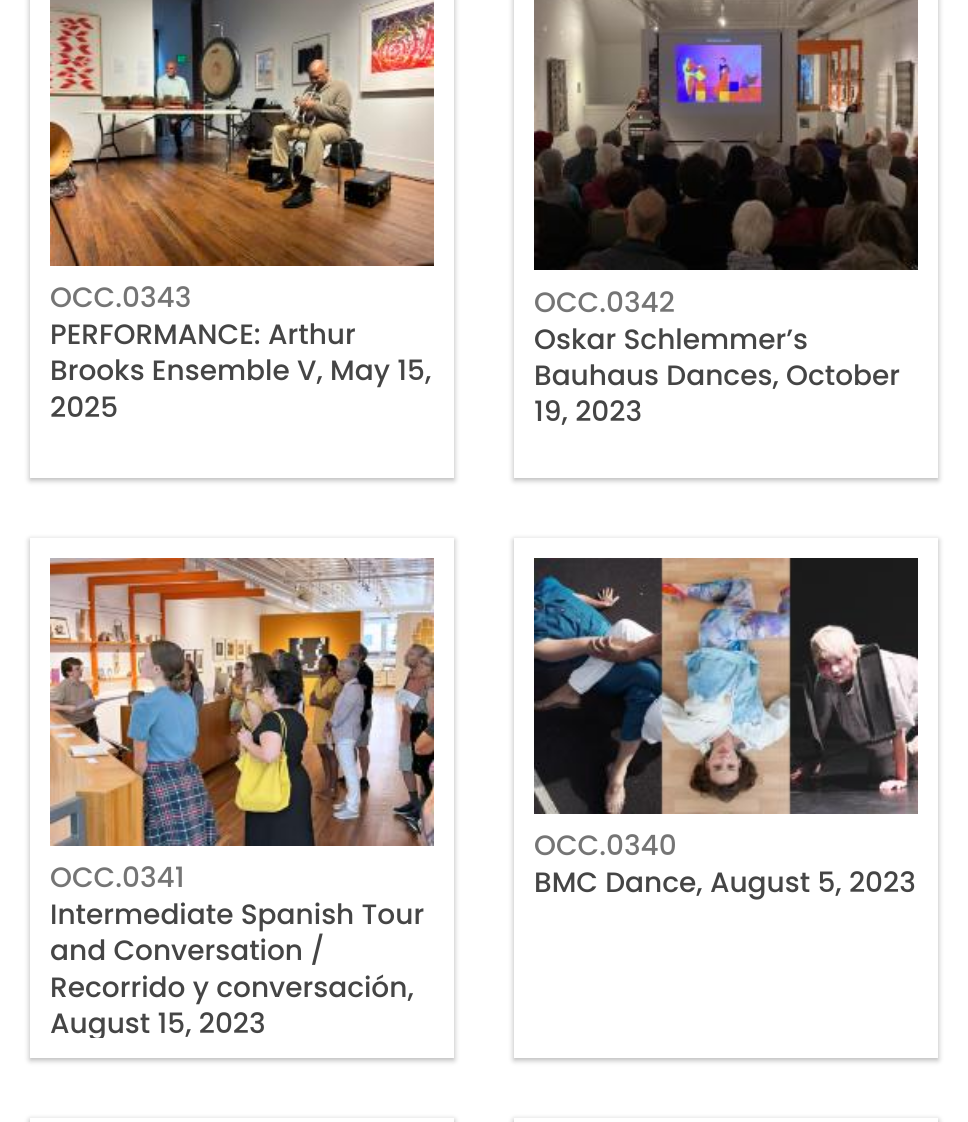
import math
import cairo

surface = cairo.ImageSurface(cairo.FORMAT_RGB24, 968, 1122)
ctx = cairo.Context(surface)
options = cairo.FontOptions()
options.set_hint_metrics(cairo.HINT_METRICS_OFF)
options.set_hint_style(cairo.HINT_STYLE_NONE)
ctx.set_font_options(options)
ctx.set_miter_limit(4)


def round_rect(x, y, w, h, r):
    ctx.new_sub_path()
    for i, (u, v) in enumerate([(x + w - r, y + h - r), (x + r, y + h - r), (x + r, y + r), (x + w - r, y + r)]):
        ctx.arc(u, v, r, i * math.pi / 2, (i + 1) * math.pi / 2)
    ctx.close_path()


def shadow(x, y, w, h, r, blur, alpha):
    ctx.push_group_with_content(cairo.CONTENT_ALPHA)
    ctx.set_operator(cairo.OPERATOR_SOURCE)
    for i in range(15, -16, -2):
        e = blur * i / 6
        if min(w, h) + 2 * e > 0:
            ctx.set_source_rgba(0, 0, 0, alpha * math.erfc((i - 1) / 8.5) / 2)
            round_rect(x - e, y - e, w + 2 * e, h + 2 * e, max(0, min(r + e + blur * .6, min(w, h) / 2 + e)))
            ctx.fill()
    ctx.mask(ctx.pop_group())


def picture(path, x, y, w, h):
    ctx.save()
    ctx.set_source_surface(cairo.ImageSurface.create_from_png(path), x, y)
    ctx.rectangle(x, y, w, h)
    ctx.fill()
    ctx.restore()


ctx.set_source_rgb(1, 1, 1)
ctx.paint()
ctx.save()
ctx.set_fill_rule(cairo.FILL_RULE_EVEN_ODD)
ctx.new_path()
ctx.move_to(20, 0)
ctx.line_to(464, 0)
ctx.line_to(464, 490)
ctx.line_to(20, 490)
ctx.close_path()
ctx.move_to(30, -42)
ctx.line_to(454, -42)
ctx.line_to(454, 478)
ctx.line_to(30, 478)
ctx.close_path()
ctx.clip()
ctx.set_source_rgb(0, 0, 0)
shadow(30, -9, 424, 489, 0, 3, 0.3)
ctx.restore()
picture("img1.png", 50, 0, 384, 266)
ctx.select_font_face("Poppins Medium")
ctx.set_font_size(28)
ctx.set_source_rgb(0.459, 0.459, 0.459)
ctx.move_to(50, 307)
ctx.show_text("OCC.0343")
ctx.set_source_rgb(0.271, 0.271, 0.271)
ctx.move_to(50, 344)
ctx.show_text("PERFORMANCE: Arthur")
ctx.move_to(50, 380)
ctx.show_text("Brooks Ensemble V, May 15,")
ctx.move_to(50, 417)
ctx.show_text("2025")
ctx.save()
ctx.set_fill_rule(cairo.FILL_RULE_EVEN_ODD)
ctx.new_path()
ctx.move_to(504, 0)
ctx.line_to(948, 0)
ctx.line_to(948, 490)
ctx.line_to(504, 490)
ctx.close_path()
ctx.move_to(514, -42)
ctx.line_to(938, -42)
ctx.line_to(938, 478)
ctx.line_to(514, 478)
ctx.close_path()
ctx.clip()
ctx.set_source_rgb(0, 0, 0)
shadow(514, -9, 424, 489, 0, 3, 0.3)
ctx.restore()
picture("img2.png", 534, 0, 384, 270)
ctx.set_source_rgb(0.459, 0.459, 0.459)
ctx.move_to(534, 312)
ctx.show_text("OCC.0342")
ctx.set_source_rgb(0.271, 0.271, 0.271)
ctx.move_to(534, 349)
ctx.show_text("Oskar Schlemmer’s")
ctx.move_to(534, 385)
ctx.show_text("Bauhaus Dances, October")
ctx.move_to(534, 421)
ctx.show_text("19, 2023")
ctx.save()
ctx.set_fill_rule(cairo.FILL_RULE_EVEN_ODD)
ctx.new_path()
ctx.move_to(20, 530)
ctx.line_to(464, 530)
ctx.line_to(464, 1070)
ctx.line_to(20, 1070)
ctx.close_path()
ctx.move_to(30, 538)
ctx.line_to(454, 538)
ctx.line_to(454, 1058)
ctx.line_to(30, 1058)
ctx.close_path()
ctx.clip()
ctx.set_source_rgb(0, 0, 0)
shadow(30, 540, 424, 520, 0, 3, 0.3)
ctx.restore()
picture("img3.png", 50, 558, 384, 288)
ctx.set_source_rgb(0.459, 0.459, 0.459)
ctx.move_to(50, 887)
ctx.show_text("OCC.0341")
ctx.set_source_rgb(0.271, 0.271, 0.271)
ctx.move_to(50, 924)
ctx.show_text("Intermediate Spanish Tour")
ctx.move_to(50, 960)
ctx.show_text("and Conversation /")
ctx.move_to(50, 997)
ctx.show_text("Recorrido y conversación,")
ctx.save()
ctx.rectangle(50, 558, 384, 480)
ctx.clip()
ctx.move_to(50, 1033)
ctx.show_text("August 15, 2023")
ctx.restore()
ctx.save()
ctx.set_fill_rule(cairo.FILL_RULE_EVEN_ODD)
ctx.new_path()
ctx.move_to(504, 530)
ctx.line_to(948, 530)
ctx.line_to(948, 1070)
ctx.line_to(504, 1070)
ctx.close_path()
ctx.move_to(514, 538)
ctx.line_to(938, 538)
ctx.line_to(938, 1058)
ctx.line_to(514, 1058)
ctx.close_path()
ctx.clip()
ctx.set_source_rgb(0, 0, 0)
shadow(514, 540, 424, 520, 0, 3, 0.3)
ctx.restore()
picture("img4.png", 534, 558, 384, 256)
ctx.set_source_rgb(0.459, 0.459, 0.459)
ctx.move_to(534, 855)
ctx.show_text("OCC.0340")
ctx.set_source_rgb(0.271, 0.271, 0.271)
ctx.move_to(534, 892)
ctx.show_text("BMC Dance, August 5, 2023")
ctx.save()
ctx.set_fill_rule(cairo.FILL_RULE_EVEN_ODD)
ctx.new_path()
ctx.move_to(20, 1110)
ctx.line_to(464, 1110)
ctx.line_to(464, 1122)
ctx.line_to(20, 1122)
ctx.close_path()
ctx.move_to(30, 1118)
ctx.line_to(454, 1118)
ctx.line_to(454, 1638)
ctx.line_to(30, 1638)
ctx.close_path()
ctx.clip()
ctx.set_source_rgb(0, 0, 0)
shadow(30, 1120, 424, 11, 0, 3, 0.3)
ctx.restore()
ctx.save()
ctx.set_fill_rule(cairo.FILL_RULE_EVEN_ODD)
ctx.new_path()
ctx.move_to(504, 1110)
ctx.line_to(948, 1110)
ctx.line_to(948, 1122)
ctx.line_to(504, 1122)
ctx.close_path()
ctx.move_to(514, 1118)
ctx.line_to(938, 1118)
ctx.line_to(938, 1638)
ctx.line_to(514, 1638)
ctx.close_path()
ctx.clip()
ctx.set_source_rgb(0, 0, 0)
shadow(514, 1120, 424, 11, 0, 3, 0.3)
ctx.restore()
surface.write_to_png("page.png")
